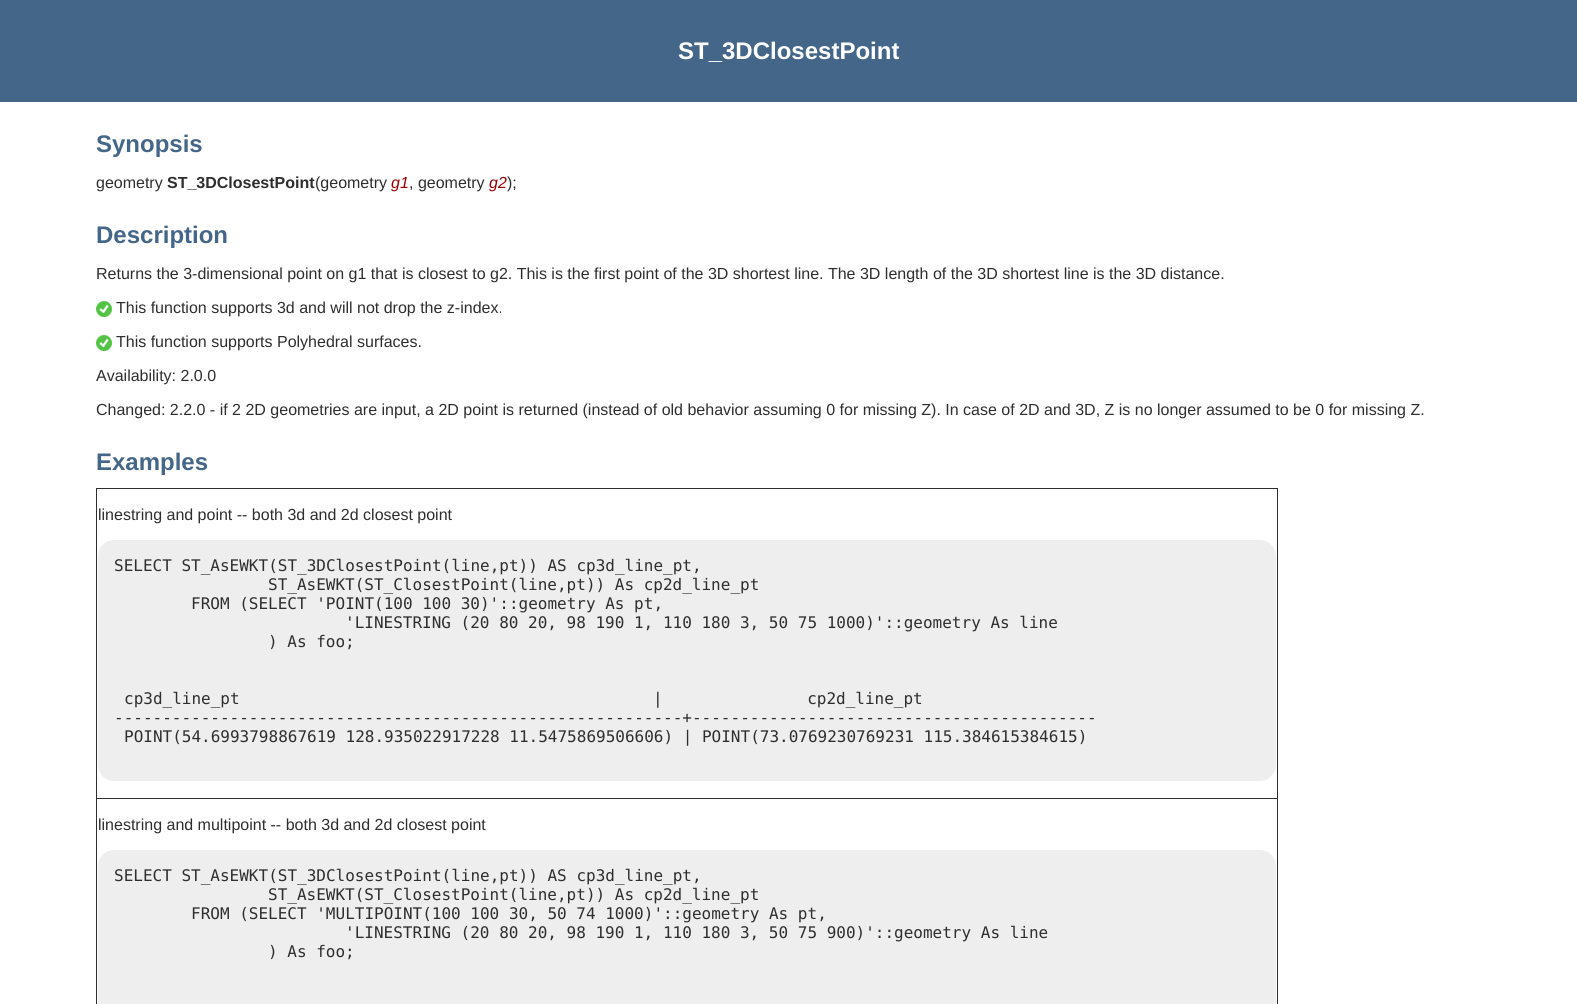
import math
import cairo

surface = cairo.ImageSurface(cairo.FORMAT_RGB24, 1577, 1004)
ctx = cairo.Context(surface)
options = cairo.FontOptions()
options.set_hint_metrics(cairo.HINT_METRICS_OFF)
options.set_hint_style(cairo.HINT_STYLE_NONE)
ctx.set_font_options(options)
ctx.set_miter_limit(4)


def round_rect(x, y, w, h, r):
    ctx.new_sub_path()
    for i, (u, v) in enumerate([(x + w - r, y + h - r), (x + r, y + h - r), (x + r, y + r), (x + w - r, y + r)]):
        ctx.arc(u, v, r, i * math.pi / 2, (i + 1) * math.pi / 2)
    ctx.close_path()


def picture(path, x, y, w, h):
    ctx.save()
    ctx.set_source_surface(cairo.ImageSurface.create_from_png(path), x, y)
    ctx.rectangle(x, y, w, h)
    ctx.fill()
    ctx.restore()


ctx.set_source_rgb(1, 1, 1)
ctx.paint()
ctx.set_source_rgb(0.267, 0.4, 0.533)
ctx.rectangle(0, 0, 1577, 102)
ctx.fill()
ctx.select_font_face("Liberation Sans", cairo.FONT_SLANT_NORMAL, cairo.FONT_WEIGHT_BOLD)
ctx.set_font_size(24)
ctx.set_source_rgb(1, 1, 1)
ctx.move_to(678, 59)
ctx.show_text("ST_3DClosestPoint")
ctx.set_source_rgb(0.267, 0.4, 0.533)
ctx.move_to(96, 152)
ctx.show_text("Synopsis")
ctx.select_font_face("Liberation Sans")
ctx.set_font_size(16)
ctx.set_source_rgb(0.18, 0.18, 0.18)
ctx.move_to(96, 188)
ctx.show_text("geometry")
ctx.select_font_face("Liberation Sans", cairo.FONT_SLANT_NORMAL, cairo.FONT_WEIGHT_BOLD)
ctx.move_to(167, 188)
ctx.show_text("ST_3DClosestPoint")
ctx.select_font_face("Liberation Sans")
ctx.move_to(315, 188)
ctx.show_text("(geometry")
ctx.select_font_face("Liberation Sans", cairo.FONT_SLANT_ITALIC)
ctx.set_source_rgb(0.6, 0, 0)
ctx.move_to(391, 188)
ctx.show_text("g1")
ctx.select_font_face("Liberation Sans")
ctx.set_source_rgb(0.18, 0.18, 0.18)
ctx.move_to(409, 188)
ctx.show_text(", geometry")
ctx.select_font_face("Liberation Sans", cairo.FONT_SLANT_ITALIC)
ctx.set_source_rgb(0.6, 0, 0)
ctx.move_to(489, 188)
ctx.show_text("g2")
ctx.select_font_face("Liberation Sans")
ctx.set_source_rgb(0.18, 0.18, 0.18)
ctx.move_to(507, 188)
ctx.show_text(");")
ctx.select_font_face("Liberation Sans", cairo.FONT_SLANT_NORMAL, cairo.FONT_WEIGHT_BOLD)
ctx.set_font_size(24)
ctx.set_source_rgb(0.267, 0.4, 0.533)
ctx.move_to(96, 243)
ctx.show_text("Description")
ctx.select_font_face("Liberation Sans")
ctx.set_font_size(16)
ctx.set_source_rgb(0.18, 0.18, 0.18)
ctx.move_to(96, 279)
ctx.show_text("Returns the 3-dimensional point on g1 that is closest to g2. This is the first point of the 3D shortest line. The 3D length of the 3D shortest line is the 3D distance.")
picture("img1.png", 96, 301, 16, 16)
ctx.move_to(116, 313)
ctx.show_text("This function supports 3d and will not drop the z-index.")
picture("img1.png", 96, 335, 16, 16)
ctx.move_to(116, 347)
ctx.show_text("This function supports Polyhedral surfaces.")
ctx.move_to(96, 381)
ctx.show_text("Availability: 2.0.0")
ctx.move_to(96, 415)
ctx.show_text("Changed: 2.2.0 - if 2 2D geometries are input, a 2D point is returned (instead of old behavior assuming 0 for missing Z). In case of 2D and 3D, Z is no longer assumed to be 0 for missing Z.")
ctx.select_font_face("Liberation Sans", cairo.FONT_SLANT_NORMAL, cairo.FONT_WEIGHT_BOLD)
ctx.set_font_size(24)
ctx.set_source_rgb(0.267, 0.4, 0.533)
ctx.move_to(96, 470)
ctx.show_text("Examples")
ctx.set_source_rgb(0.18, 0.18, 0.18)
ctx.rectangle(96, 488, 1182, 1)
ctx.fill()
ctx.rectangle(1277, 488, 1, 516)
ctx.fill()
ctx.rectangle(96, 488, 1, 516)
ctx.fill()
ctx.rectangle(96, 798, 1182, 1)
ctx.fill()
ctx.select_font_face("Liberation Sans")
ctx.set_font_size(16)
ctx.move_to(98, 520)
ctx.show_text("linestring and point -- both 3d and 2d closest point")
ctx.set_source_rgb(0.933, 0.933, 0.933)
round_rect(98, 540, 1178, 241, 16)
ctx.fill()
ctx.select_font_face("DejaVu Sans Mono")
ctx.set_source_rgb(0.18, 0.18, 0.18)
ctx.move_to(114, 571)
ctx.show_text("SELECT ST_AsEWKT(ST_3DClosestPoint(line,pt)) AS cp3d_line_pt,")
ctx.move_to(268, 590)
ctx.show_text("ST_AsEWKT(ST_ClosestPoint(line,pt)) As cp2d_line_pt")
ctx.move_to(191, 609)
ctx.show_text("FROM (SELECT 'POINT(100 100 30)'::geometry As pt,")
ctx.move_to(345, 628)
ctx.show_text("'LINESTRING (20 80 20, 98 190 1, 110 180 3, 50 75 1000)'::geometry As line")
ctx.move_to(268, 647)
ctx.show_text(") As foo;")
ctx.move_to(124, 704)
ctx.show_text("cp3d_line_pt")
ctx.move_to(653, 704)
ctx.show_text("|               cp2d_line_pt")
ctx.move_to(114, 723)
ctx.show_text("-----------------------------------------------------------+------------------------------------------")
ctx.move_to(124, 742)
ctx.show_text("POINT(54.6993798867619 128.935022917228 11.5475869506606) | POINT(73.0769230769231 115.384615384615)")
ctx.select_font_face("Liberation Sans")
ctx.move_to(98, 830)
ctx.show_text("linestring and multipoint -- both 3d and 2d closest point")
ctx.set_source_rgb(0.933, 0.933, 0.933)
round_rect(98, 850, 1178, 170, 16)
ctx.fill()
ctx.select_font_face("DejaVu Sans Mono")
ctx.set_source_rgb(0.18, 0.18, 0.18)
ctx.move_to(114, 881)
ctx.show_text("SELECT ST_AsEWKT(ST_3DClosestPoint(line,pt)) AS cp3d_line_pt,")
ctx.move_to(268, 900)
ctx.show_text("ST_AsEWKT(ST_ClosestPoint(line,pt)) As cp2d_line_pt")
ctx.move_to(191, 919)
ctx.show_text("FROM (SELECT 'MULTIPOINT(100 100 30, 50 74 1000)'::geometry As pt,")
ctx.move_to(345, 938)
ctx.show_text("'LINESTRING (20 80 20, 98 190 1, 110 180 3, 50 75 900)'::geometry As line")
ctx.move_to(268, 957)
ctx.show_text(") As foo;")
surface.write_to_png("page.png")
